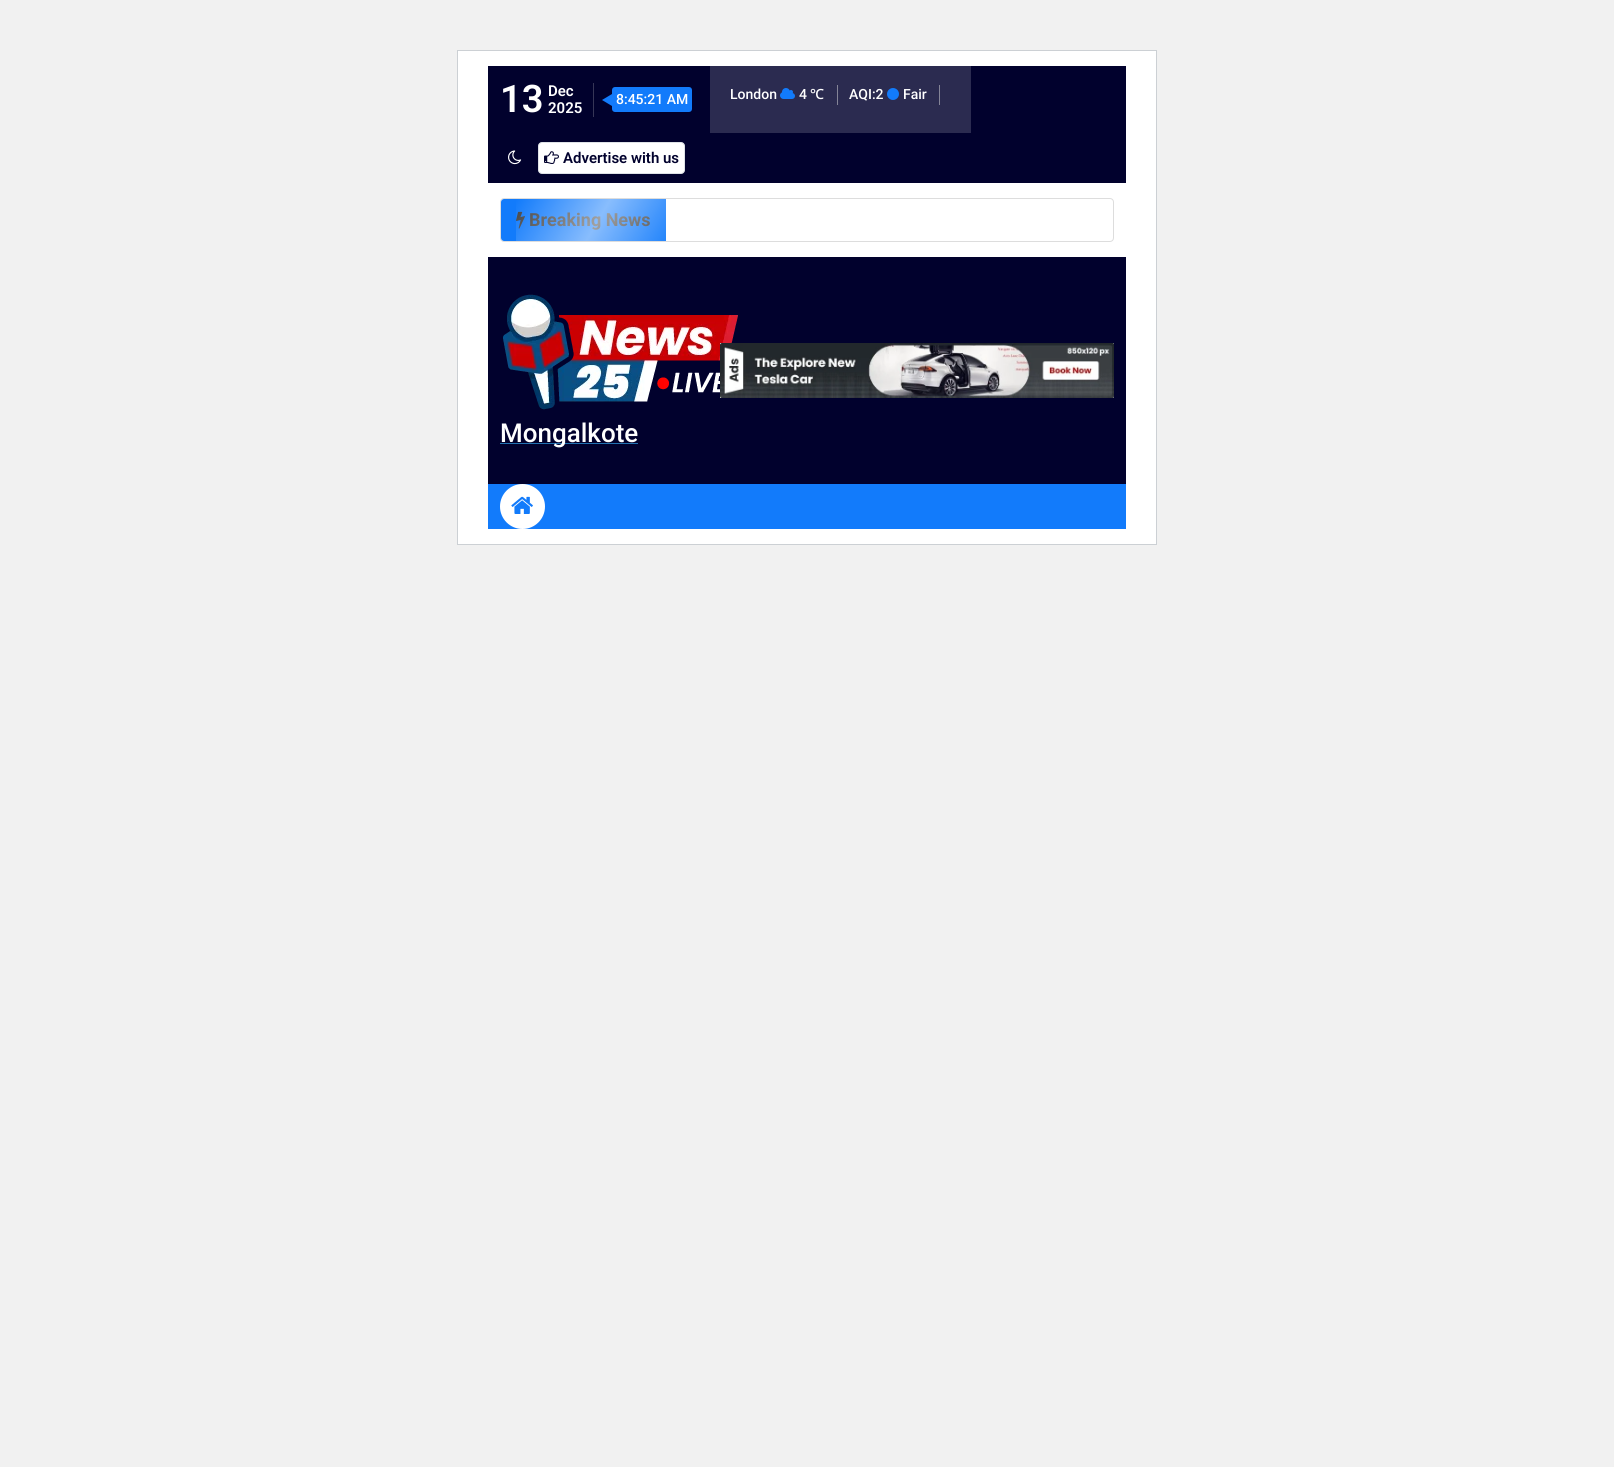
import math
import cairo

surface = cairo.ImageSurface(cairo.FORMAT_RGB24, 1614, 1467)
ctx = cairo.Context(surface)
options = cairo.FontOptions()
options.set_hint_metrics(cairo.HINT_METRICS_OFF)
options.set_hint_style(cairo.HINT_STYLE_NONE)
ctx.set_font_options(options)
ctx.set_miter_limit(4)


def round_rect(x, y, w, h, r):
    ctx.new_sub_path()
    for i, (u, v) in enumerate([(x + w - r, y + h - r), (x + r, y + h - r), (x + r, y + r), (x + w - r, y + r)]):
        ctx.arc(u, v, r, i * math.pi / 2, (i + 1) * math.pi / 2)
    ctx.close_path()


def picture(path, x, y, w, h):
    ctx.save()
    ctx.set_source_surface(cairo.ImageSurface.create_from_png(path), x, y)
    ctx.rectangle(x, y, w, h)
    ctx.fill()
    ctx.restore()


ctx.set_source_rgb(0.945, 0.945, 0.945)
ctx.paint()
ctx.set_source_rgb(1, 1, 1)
ctx.rectangle(457.5, 50.5, 699, 494)
ctx.fill_preserve()
ctx.set_source_rgb(0.8, 0.816, 0.831)
ctx.set_line_width(1)
ctx.stroke()
ctx.set_source_rgb(0.004, 0.004, 0.176)
ctx.rectangle(488, 66, 638, 117)
ctx.fill()
ctx.select_font_face("Roboto SemiBold")
ctx.set_font_size(38)
ctx.set_source_rgb(1, 1, 1)
ctx.move_to(500, 112)
ctx.show_text("13")
ctx.set_source_rgb(0.212, 0.212, 0.341)
ctx.rectangle(593, 83, 1, 34)
ctx.fill()
ctx.set_font_size(15)
ctx.set_source_rgb(1, 1, 1)
ctx.move_to(548, 96)
ctx.show_text("Dec")
ctx.move_to(548, 113)
ctx.show_text("2025")
ctx.set_source_rgb(0.071, 0.482, 0.984)
round_rect(612, 87, 80, 25, 3)
ctx.fill()
ctx.new_path()
ctx.move_to(612, 94)
ctx.line_to(612, 106)
ctx.line_to(602, 100)
ctx.close_path()
ctx.fill()
ctx.select_font_face("Roboto Medium")
ctx.set_font_size(14)
ctx.set_source_rgb(1, 1, 1)
ctx.move_to(616, 104)
ctx.show_text("8:45:21 AM")
ctx.set_source_rgb(0.169, 0.169, 0.314)
ctx.rectangle(710, 66, 261, 67)
ctx.fill()
ctx.set_source_rgb(1, 1, 1)
ctx.move_to(730, 99)
ctx.show_text("London")
picture("img1.png", 780, 88, 15, 11)
ctx.move_to(799, 99)
ctx.show_text("4")
ctx.select_font_face("Noto Sans Medium")
ctx.move_to(810, 99)
ctx.show_text("℃")
ctx.set_source_rgb(0.518, 0.518, 0.592)
ctx.rectangle(837, 85, 1, 20)
ctx.fill()
ctx.select_font_face("Roboto Medium")
ctx.set_source_rgb(1, 1, 1)
ctx.move_to(849, 99)
ctx.show_text("AQI:2")
picture("img2.png", 887, 88, 12, 12)
ctx.move_to(903, 99)
ctx.show_text("Fair")
ctx.set_source_rgb(0.518, 0.518, 0.592)
ctx.rectangle(939, 85, 1, 20)
ctx.fill()
picture("img3.png", 508, 150, 14, 15)
ctx.set_source_rgb(1, 1, 1)
round_rect(538.5, 142.5, 146, 31, 3.5)
ctx.fill_preserve()
ctx.set_source_rgb(0.871, 0.886, 0.902)
ctx.stroke()
picture("img4.png", 544, 151, 15, 13)
ctx.select_font_face("Roboto SemiBold")
ctx.set_font_size(15)
ctx.set_source_rgb(0.004, 0.004, 0.176)
ctx.move_to(563, 163)
ctx.show_text("Advertise with us")
round_rect(500.5, 198.5, 613, 43, 3.5)
ctx.set_source_rgb(0.867, 0.867, 0.867)
ctx.stroke()
ctx.set_source_rgb(0.071, 0.482, 0.984)
ctx.new_path()
ctx.move_to(504, 199)
ctx.line_to(666, 199)
ctx.line_to(666, 241)
ctx.line_to(504, 241)
ctx.curve_to(502.5, 241, 501, 239.5, 501, 238)
ctx.line_to(501, 202)
ctx.curve_to(501, 200.5, 502.5, 199, 504, 199)
ctx.close_path()
ctx.fill()
picture("img5.png", 516, 211, 9, 18)
ctx.select_font_face("Roboto", cairo.FONT_SLANT_NORMAL, cairo.FONT_WEIGHT_BOLD)
ctx.set_font_size(18)
ctx.set_source_rgb(0.267, 0.267, 0.267)
ctx.move_to(529, 226)
ctx.show_text("Breaking News")
gradient = cairo.LinearGradient(528, 179, 669, 261)
gradient.add_color_stop_rgba(0, 1, 1, 1, 0)
gradient.add_color_stop_rgba(0.5, 1, 1, 1, 0.5)
gradient.add_color_stop_rgba(1, 1, 1, 1, 0)
ctx.set_source(gradient)
ctx.rectangle(516, 199, 150, 42)
ctx.fill()
ctx.set_source_rgb(0.004, 0.004, 0.176)
ctx.rectangle(488, 257, 638, 227)
ctx.fill()
picture("img7.png", 503, 294, 235, 116)
picture("img6.png", 720, 343, 394, 55)
ctx.set_source_rgb(0.133, 0.443, 0.694)
ctx.rectangle(500, 443, 138, 1)
ctx.fill()
ctx.select_font_face("Roboto Medium")
ctx.set_font_size(26)
ctx.set_source_rgb(1, 1, 1)
ctx.move_to(500, 442)
ctx.show_text("Mongalkote")
ctx.set_source_rgb(0.071, 0.482, 0.984)
ctx.rectangle(488, 484, 638, 45)
ctx.fill()
ctx.set_source_rgb(1, 1, 1)
ctx.arc(522.5, 506.5, 22.5, 0, 2 * math.pi)
ctx.fill()
picture("img8.png", 511, 496, 22, 18)
surface.write_to_png("page.png")
